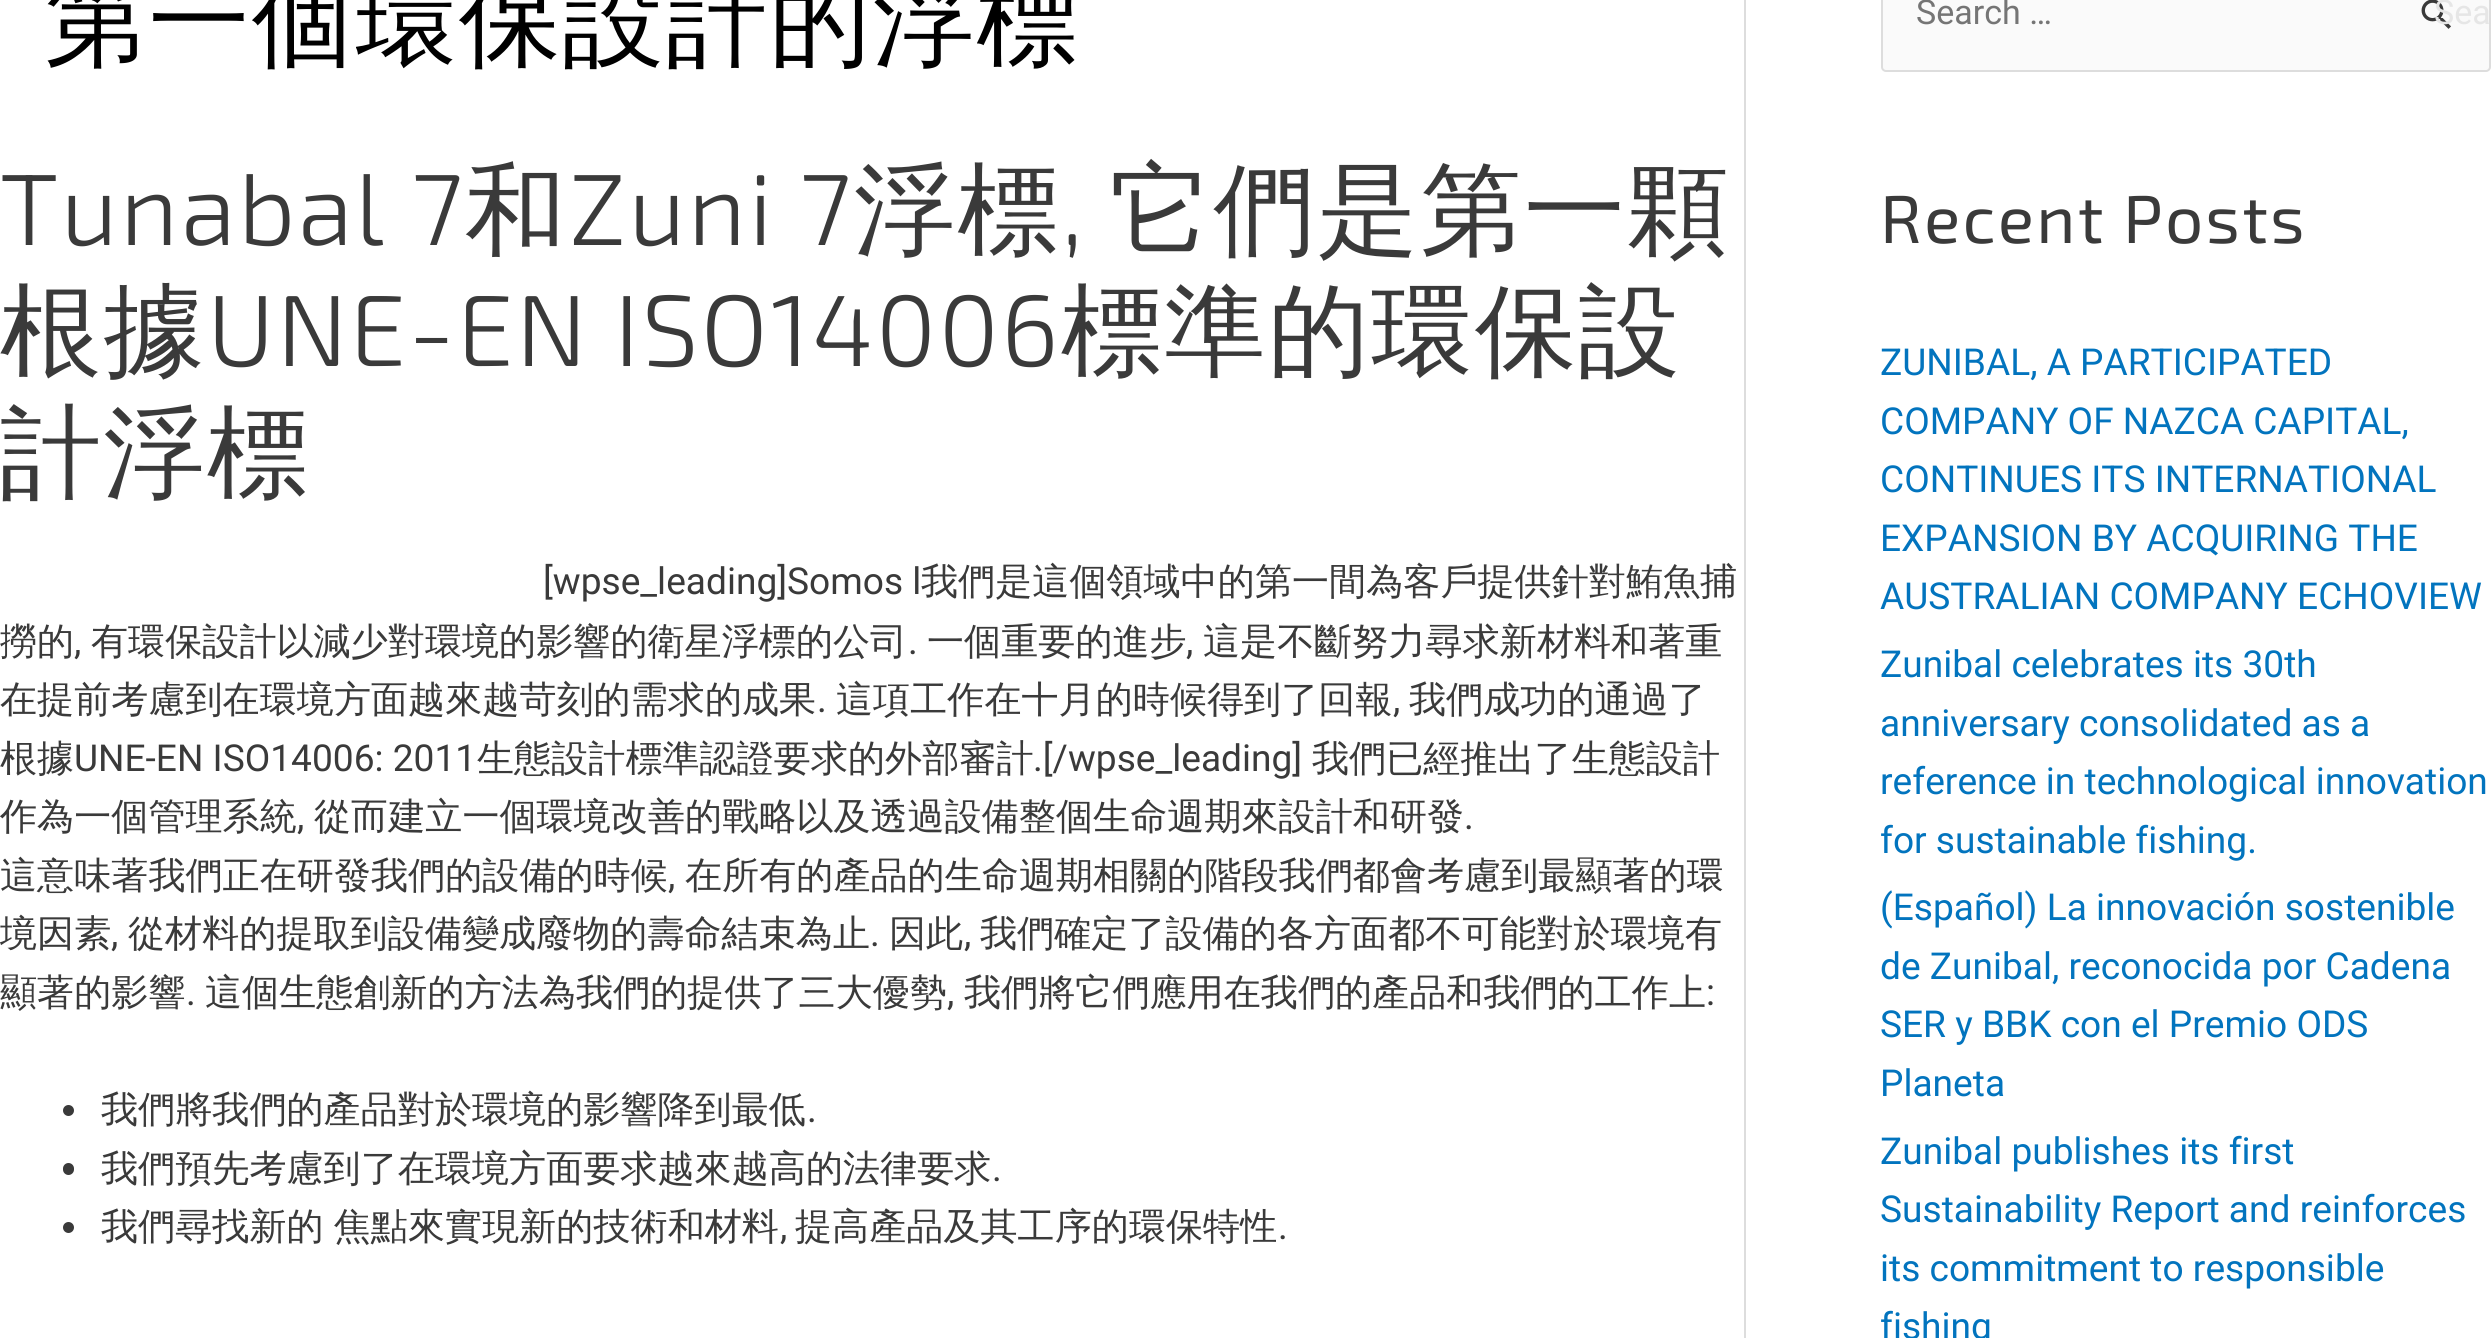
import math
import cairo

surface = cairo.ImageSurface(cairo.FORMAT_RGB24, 2492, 1338)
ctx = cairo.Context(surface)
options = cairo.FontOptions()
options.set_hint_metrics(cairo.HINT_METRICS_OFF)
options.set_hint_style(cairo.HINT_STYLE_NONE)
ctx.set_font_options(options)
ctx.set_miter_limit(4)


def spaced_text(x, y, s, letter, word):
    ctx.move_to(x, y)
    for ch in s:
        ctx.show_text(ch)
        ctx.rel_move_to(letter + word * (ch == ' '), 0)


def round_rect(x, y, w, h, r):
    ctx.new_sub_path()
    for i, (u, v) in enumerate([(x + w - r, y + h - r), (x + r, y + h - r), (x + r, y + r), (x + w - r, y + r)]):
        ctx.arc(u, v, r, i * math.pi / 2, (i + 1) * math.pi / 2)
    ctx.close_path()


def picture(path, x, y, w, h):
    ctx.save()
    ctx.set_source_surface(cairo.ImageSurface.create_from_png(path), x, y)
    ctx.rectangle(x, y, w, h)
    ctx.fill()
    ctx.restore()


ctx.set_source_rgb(1, 1, 1)
ctx.paint()
ctx.set_source_rgb(0.867, 0.867, 0.867)
ctx.rectangle(1744, 0, 2, 1338)
ctx.fill()
ctx.select_font_face("WenQuanYi Zen Hei Medium")
ctx.set_font_size(101.25)
ctx.set_source_rgb(0, 0, 0)
spaced_text(45, 56, "第一個環保設計的浮標", 2.25, 0)
ctx.select_font_face("Exo 2 Light")
ctx.set_source_rgb(0.227, 0.227, 0.227)
spaced_text(0, 245, "Tunabal 7", 2.25, 0)
ctx.select_font_face("WenQuanYi Zen Hei Medium")
spaced_text(465, 245, "和", 2.25, 0)
ctx.select_font_face("Exo 2 Light")
spaced_text(569, 245, "Zuni 7", 2.25, 0)
ctx.select_font_face("WenQuanYi Zen Hei Medium")
spaced_text(854, 245, "浮標", 2.25, 0)
ctx.select_font_face("Exo 2 Light")
spaced_text(1061, 245, ",", 2.25, 0)
ctx.select_font_face("WenQuanYi Zen Hei Medium")
spaced_text(1110, 245, "它們是第一顆", 2.25, 0)
spaced_text(0, 366, "根據", 2.25, 0)
ctx.select_font_face("Exo 2 Light")
spaced_text(207, 366, "UNE-EN ISO14006", 2.25, 0)
ctx.select_font_face("WenQuanYi Zen Hei Medium")
spaced_text(1061, 366, "標準的環保設", 2.25, 0)
spaced_text(0, 488, "計浮標", 2.25, 0)
ctx.select_font_face("Roboto")
ctx.set_font_size(37.1)
ctx.move_to(543, 594)
ctx.show_text("[wpse_leading]Somos l")
ctx.select_font_face("WenQuanYi Zen Hei Medium")
ctx.move_to(921, 594)
ctx.show_text("我們是這個領域中的第一間為客戶提供針對鮪魚捕")
ctx.move_to(0, 654)
ctx.show_text("撈的")
ctx.select_font_face("Roboto")
ctx.move_to(74, 654)
ctx.show_text(",")
ctx.select_font_face("WenQuanYi Zen Hei Medium")
ctx.move_to(91, 654)
ctx.show_text("有環保設計以減少對環境的影響的衛星浮標的公司")
ctx.select_font_face("Roboto")
ctx.move_to(908, 654)
ctx.show_text(".")
ctx.select_font_face("WenQuanYi Zen Hei Medium")
ctx.move_to(927, 654)
ctx.show_text("一個重要的進步")
ctx.select_font_face("Roboto")
ctx.move_to(1186, 654)
ctx.show_text(",")
ctx.select_font_face("WenQuanYi Zen Hei Medium")
ctx.move_to(1203, 654)
ctx.show_text("這是不斷努力尋求新材料和著重")
ctx.move_to(0, 712)
ctx.show_text("在提前考慮到在環境方面越來越苛刻的需求的成果")
ctx.select_font_face("Roboto")
ctx.move_to(817, 712)
ctx.show_text(".")
ctx.select_font_face("WenQuanYi Zen Hei Medium")
ctx.move_to(836, 712)
ctx.show_text("這項工作在十月的時候得到了回報")
ctx.select_font_face("Roboto")
ctx.move_to(1393, 712)
ctx.show_text(",")
ctx.select_font_face("WenQuanYi Zen Hei Medium")
ctx.move_to(1409, 712)
ctx.show_text("我們成功的通過了")
ctx.move_to(0, 771)
ctx.show_text("根據")
ctx.select_font_face("Roboto")
ctx.move_to(74, 771)
ctx.show_text("UNE-EN ISO14006: 2011")
ctx.select_font_face("WenQuanYi Zen Hei Medium")
ctx.move_to(477, 771)
ctx.show_text("生態設計標準認證要求的外部審計")
ctx.select_font_face("Roboto")
ctx.move_to(1033, 771)
ctx.show_text(".[/wpse_leading]")
ctx.select_font_face("WenQuanYi Zen Hei Medium")
ctx.move_to(1312, 771)
ctx.show_text("我們已經推出了生態設計")
ctx.move_to(0, 829)
ctx.show_text("作為一個管理系統")
ctx.select_font_face("Roboto")
ctx.move_to(297, 829)
ctx.show_text(",")
ctx.select_font_face("WenQuanYi Zen Hei Medium")
ctx.move_to(314, 829)
ctx.show_text("從而建立一個環境改善的戰略以及透過設備整個生命週期來設計和研發")
ctx.select_font_face("Roboto")
ctx.move_to(1464, 829)
ctx.show_text(".")
ctx.select_font_face("WenQuanYi Zen Hei Medium")
ctx.move_to(0, 888)
ctx.show_text("這意味著我們正在研發我們的設備的時候")
ctx.select_font_face("Roboto")
ctx.move_to(668, 888)
ctx.show_text(",")
ctx.select_font_face("WenQuanYi Zen Hei Medium")
ctx.move_to(685, 888)
ctx.show_text("在所有的產品的生命週期相關的階段我們都會考慮到最顯著的環")
ctx.move_to(0, 946)
ctx.show_text("境因素")
ctx.select_font_face("Roboto")
ctx.move_to(111, 946)
ctx.show_text(",")
ctx.select_font_face("WenQuanYi Zen Hei Medium")
ctx.move_to(128, 946)
ctx.show_text("從材料的提取到設備變成廢物的壽命結束為止")
ctx.select_font_face("Roboto")
ctx.move_to(870, 946)
ctx.show_text(".")
ctx.select_font_face("WenQuanYi Zen Hei Medium")
ctx.move_to(889, 946)
ctx.show_text("因此")
ctx.select_font_face("Roboto")
ctx.move_to(964, 946)
ctx.show_text(",")
ctx.select_font_face("WenQuanYi Zen Hei Medium")
ctx.move_to(980, 946)
ctx.show_text("我們確定了設備的各方面都不可能對於環境有")
ctx.move_to(0, 1005)
ctx.show_text("顯著的影響")
ctx.select_font_face("Roboto")
ctx.move_to(186, 1005)
ctx.show_text(".")
ctx.select_font_face("WenQuanYi Zen Hei Medium")
ctx.move_to(205, 1005)
ctx.show_text("這個生態創新的方法為我們的提供了三大優勢")
ctx.select_font_face("Roboto")
ctx.move_to(947, 1005)
ctx.show_text(",")
ctx.select_font_face("WenQuanYi Zen Hei Medium")
ctx.move_to(964, 1005)
ctx.show_text("我們將它們應用在我們的產品和我們的工作上")
ctx.select_font_face("Roboto")
ctx.move_to(1706, 1005)
ctx.show_text(":")
ctx.new_path()
ctx.arc(68.5, 1110.5, 5.5, 0, 2 * math.pi)
ctx.fill()
ctx.select_font_face("WenQuanYi Zen Hei Medium")
ctx.move_to(101, 1122)
ctx.show_text("我們將我們的產品對於環境的影響降到最低")
ctx.select_font_face("Roboto")
ctx.move_to(807, 1122)
ctx.show_text(".")
round_rect(63, 1163, 11, 12, 5.5)
ctx.fill()
ctx.select_font_face("WenQuanYi Zen Hei Medium")
ctx.move_to(101, 1181)
ctx.show_text("我們預先考慮到了在環境方面要求越來越高的法律要求")
ctx.select_font_face("Roboto")
ctx.move_to(992, 1181)
ctx.show_text(".")
ctx.new_path()
ctx.arc(68.5, 1227.5, 5.5, 0, 2 * math.pi)
ctx.fill()
ctx.select_font_face("WenQuanYi Zen Hei Medium")
spaced_text(101, 1239, "我們尋找新的 焦點來實現新的技術和材料", 0, -1)
ctx.move_to(795, 1239)
ctx.show_text("提高產品及其工序的環保特性")
ctx.select_font_face("Roboto")
ctx.move_to(780, 1239)
ctx.show_text(",")
ctx.move_to(1278, 1239)
ctx.show_text(".")
ctx.set_source_rgb(0.98, 0.98, 0.98)
round_rect(1882, -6, 608, 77, 4)
ctx.fill_preserve()
ctx.set_source_rgb(0.867, 0.867, 0.867)
ctx.stroke()
ctx.set_font_size(34)
ctx.set_source_rgb(0.459, 0.459, 0.459)
ctx.move_to(1916, 24)
ctx.show_text("Search …")
picture("img1.png", 2421, 0, 30, 29)
ctx.set_source_rgb(0.902, 0.902, 0.902)
ctx.move_to(2434, 24)
ctx.show_text("Sea")
ctx.select_font_face("Exo 2")
ctx.set_font_size(67.5)
ctx.set_source_rgb(0.227, 0.227, 0.227)
spaced_text(1880, 243, "Recent Posts", 2.25, 0)
ctx.select_font_face("Roboto")
ctx.set_font_size(37.1)
ctx.set_source_rgb(0.008, 0.455, 0.745)
ctx.move_to(1880, 375)
ctx.show_text("ZUNIBAL, A PARTICIPATED")
ctx.move_to(1880, 434)
ctx.show_text("COMPANY OF NAZCA CAPITAL,")
ctx.move_to(1880, 492)
ctx.show_text("CONTINUES ITS INTERNATIONAL")
ctx.move_to(1880, 551)
ctx.show_text("EXPANSION BY ACQUIRING THE")
ctx.move_to(1880, 609)
ctx.show_text("AUSTRALIAN COMPANY ECHOVIEW")
ctx.move_to(1880, 677)
ctx.show_text("Zunibal celebrates its 30th")
ctx.move_to(1880, 736)
ctx.show_text("anniversary consolidated as a")
ctx.move_to(1880, 794)
ctx.show_text("reference in technological innovation")
ctx.move_to(1880, 853)
ctx.show_text("for sustainable fishing.")
ctx.move_to(1880, 920)
ctx.show_text("(Español) La innovación sostenible")
ctx.move_to(1880, 979)
ctx.show_text("de Zunibal, reconocida por Cadena")
ctx.move_to(1880, 1037)
ctx.show_text("SER y BBK con el Premio ODS")
ctx.move_to(1880, 1096)
ctx.show_text("Planeta")
ctx.move_to(1880, 1164)
ctx.show_text("Zunibal publishes its first")
ctx.move_to(1880, 1222)
ctx.show_text("Sustainability Report and reinforces")
ctx.move_to(1880, 1281)
ctx.show_text("its commitment to responsible")
ctx.move_to(1880, 1339)
ctx.show_text("fishing")
surface.write_to_png("page.png")
